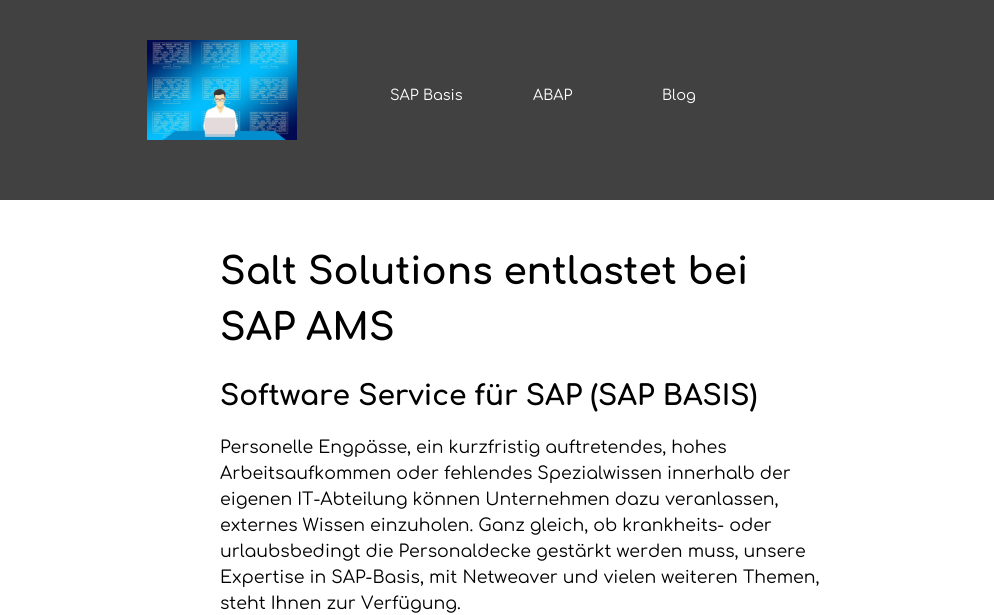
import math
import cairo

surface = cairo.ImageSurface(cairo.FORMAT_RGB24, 994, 615)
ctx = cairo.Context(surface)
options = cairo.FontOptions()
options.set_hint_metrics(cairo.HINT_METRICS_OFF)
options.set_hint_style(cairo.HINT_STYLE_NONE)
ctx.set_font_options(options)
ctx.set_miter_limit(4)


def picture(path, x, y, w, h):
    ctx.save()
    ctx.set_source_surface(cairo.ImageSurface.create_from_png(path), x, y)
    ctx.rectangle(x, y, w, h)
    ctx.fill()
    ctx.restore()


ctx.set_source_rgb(1, 1, 1)
ctx.paint()
ctx.set_source_rgb(0.255, 0.255, 0.255)
ctx.rectangle(0, 0, 994, 200)
ctx.fill()
picture("img1.png", 147, 40, 150, 100)
ctx.select_font_face("Comfortaa")
ctx.set_font_size(14.5)
ctx.set_source_rgb(1, 1, 1)
ctx.move_to(390, 100)
ctx.show_text("SAP Basis")
ctx.move_to(533, 100)
ctx.show_text("ABAP")
ctx.move_to(662, 100)
ctx.show_text("Blog")
ctx.select_font_face("Comfortaa", cairo.FONT_SLANT_NORMAL, cairo.FONT_WEIGHT_BOLD)
ctx.set_font_size(37.3)
ctx.set_source_rgb(0, 0, 0)
ctx.move_to(220, 284)
ctx.show_text("Salt Solutions entlastet bei")
ctx.move_to(220, 340)
ctx.show_text("SAP AMS")
ctx.set_font_size(28)
ctx.move_to(220, 405)
ctx.show_text("Software Service für SAP (SAP BASIS)")
ctx.select_font_face("Comfortaa")
ctx.set_font_size(17.35)
ctx.move_to(220, 453)
ctx.show_text("Personelle Engpässe, ein kurzfristig auftretendes, hohes")
ctx.move_to(220, 479)
ctx.show_text("Arbeitsaufkommen oder fehlendes Spezialwissen innerhalb der")
ctx.move_to(220, 505)
ctx.show_text("eigenen IT-Abteilung können Unternehmen dazu veranlassen,")
ctx.move_to(220, 531)
ctx.show_text("externes Wissen einzuholen. Ganz gleich, ob krankheits- oder")
ctx.move_to(220, 557)
ctx.show_text("urlaubsbedingt die Personaldecke gestärkt werden muss, unsere")
ctx.move_to(220, 583)
ctx.show_text("Expertise in SAP-Basis, mit Netweaver und vielen weiteren Themen,")
ctx.move_to(220, 609)
ctx.show_text("steht Ihnen zur Verfügung.")
surface.write_to_png("page.png")
